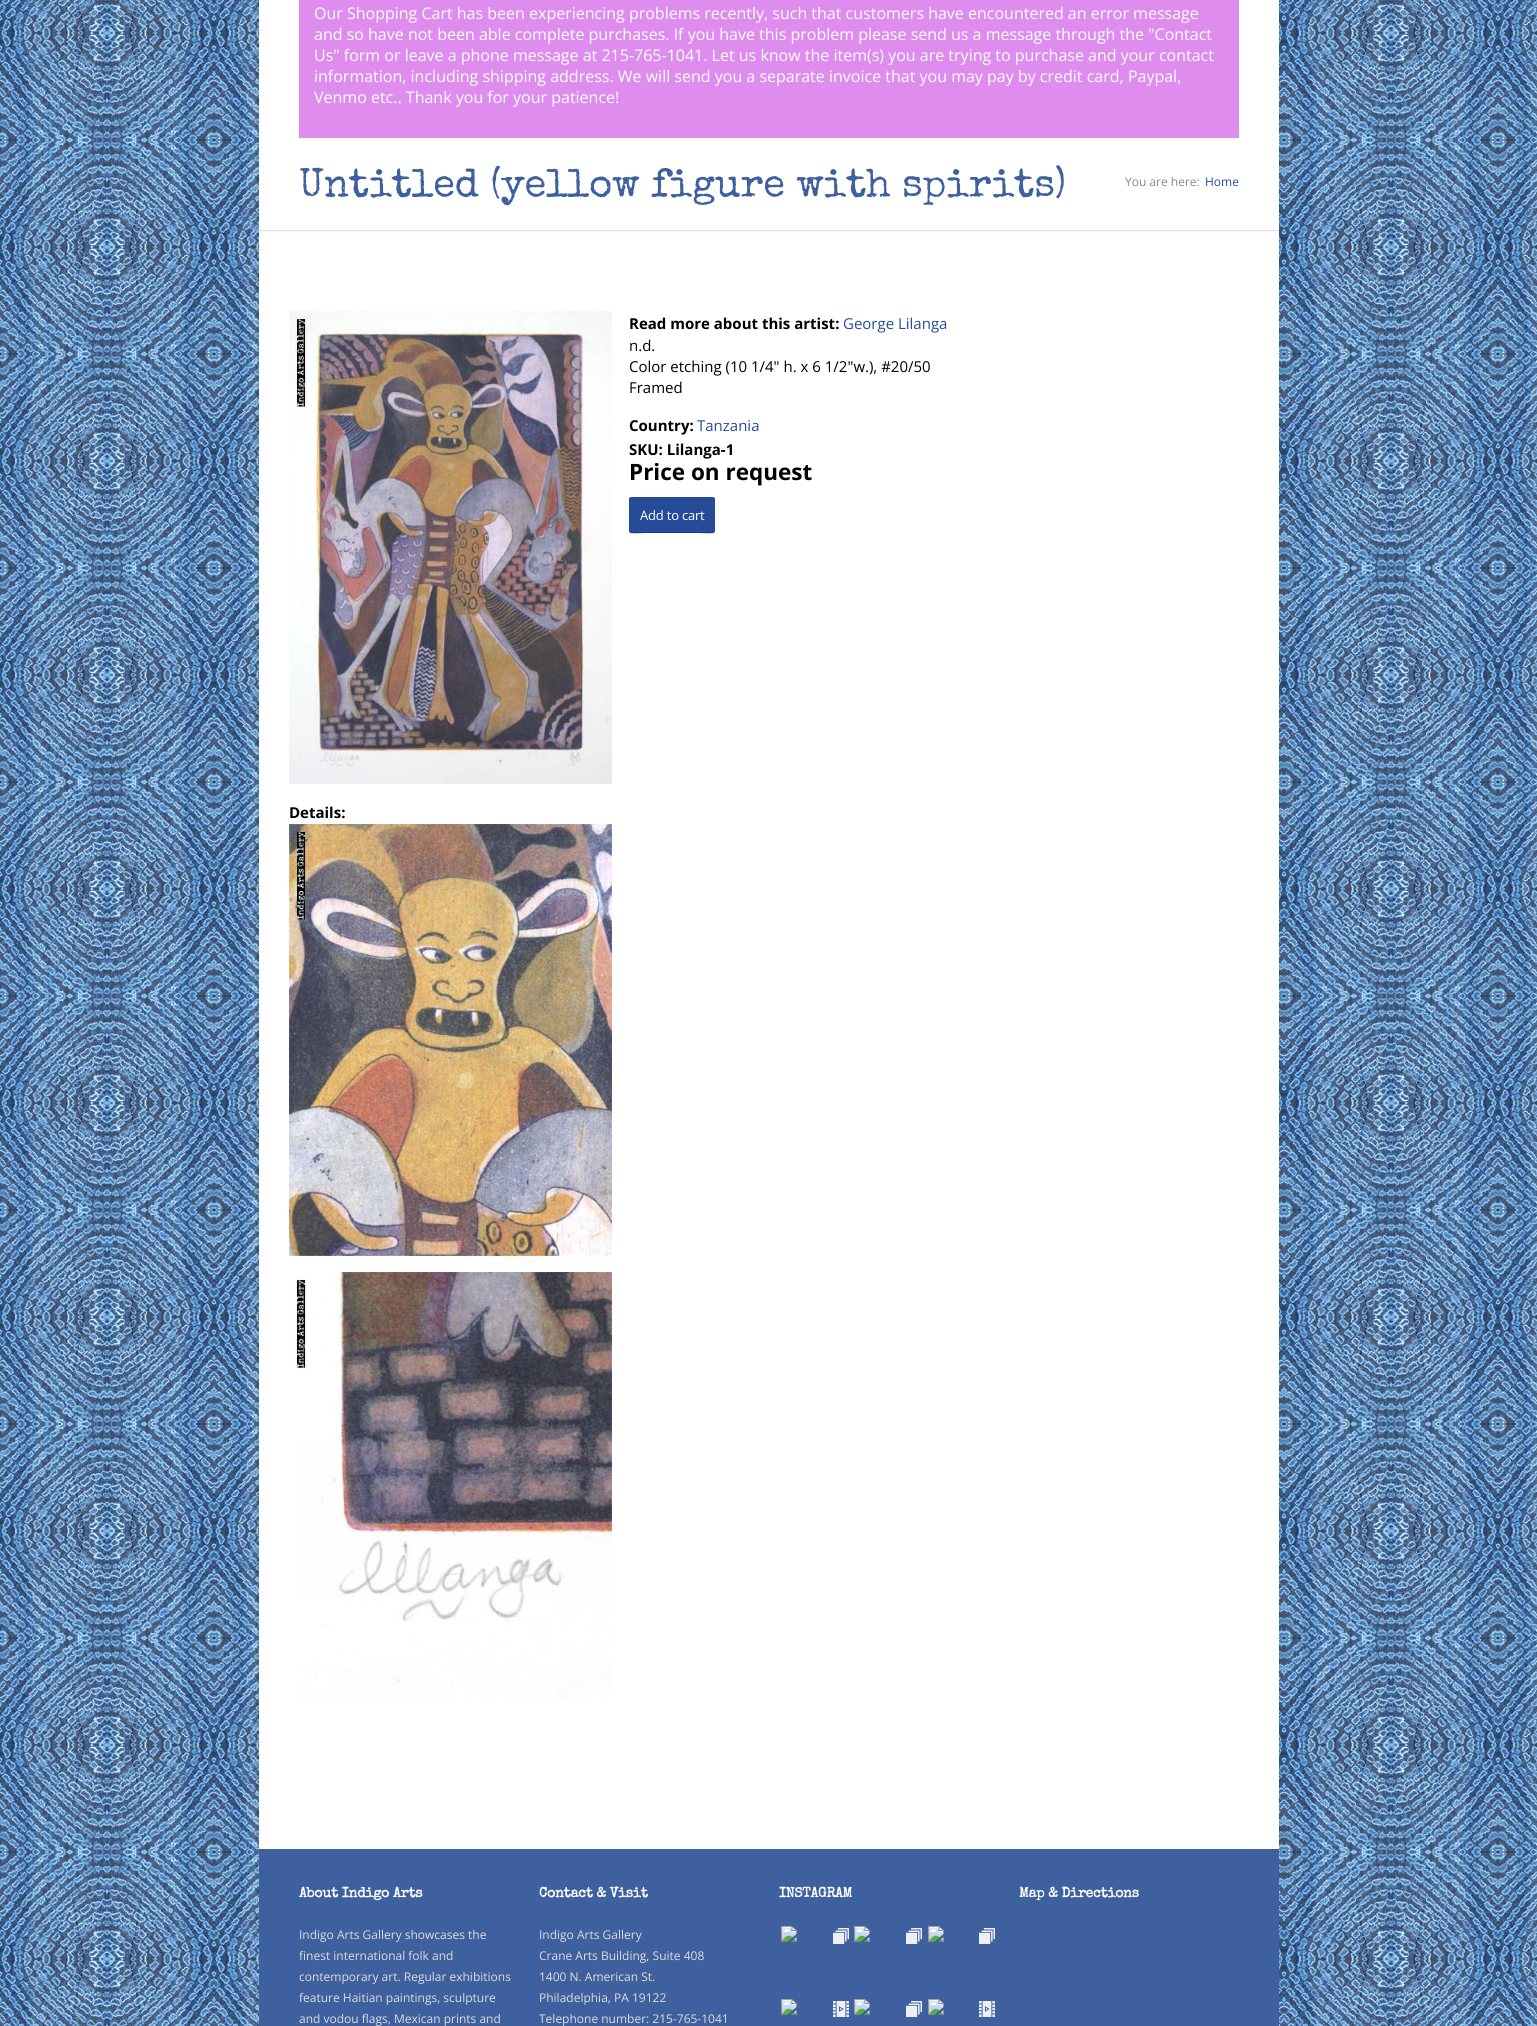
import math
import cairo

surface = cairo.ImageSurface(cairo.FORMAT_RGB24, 1537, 2026)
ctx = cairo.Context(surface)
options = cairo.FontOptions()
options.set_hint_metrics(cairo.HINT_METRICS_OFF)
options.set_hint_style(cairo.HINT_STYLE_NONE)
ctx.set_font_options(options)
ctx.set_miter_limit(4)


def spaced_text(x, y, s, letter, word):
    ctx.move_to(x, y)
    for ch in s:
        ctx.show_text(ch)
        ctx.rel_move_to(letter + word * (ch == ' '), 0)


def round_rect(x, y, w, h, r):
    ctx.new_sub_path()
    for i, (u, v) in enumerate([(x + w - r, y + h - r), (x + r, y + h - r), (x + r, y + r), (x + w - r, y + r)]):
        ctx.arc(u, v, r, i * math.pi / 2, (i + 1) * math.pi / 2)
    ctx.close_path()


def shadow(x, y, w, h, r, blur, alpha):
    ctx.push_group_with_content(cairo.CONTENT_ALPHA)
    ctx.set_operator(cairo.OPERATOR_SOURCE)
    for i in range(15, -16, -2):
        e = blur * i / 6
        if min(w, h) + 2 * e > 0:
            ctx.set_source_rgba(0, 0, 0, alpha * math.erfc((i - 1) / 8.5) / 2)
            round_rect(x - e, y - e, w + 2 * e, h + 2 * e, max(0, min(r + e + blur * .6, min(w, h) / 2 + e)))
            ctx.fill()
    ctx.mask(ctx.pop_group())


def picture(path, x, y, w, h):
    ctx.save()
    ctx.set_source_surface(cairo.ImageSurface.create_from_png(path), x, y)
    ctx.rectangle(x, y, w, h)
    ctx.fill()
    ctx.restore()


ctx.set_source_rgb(1, 1, 1)
ctx.paint()
picture("img1.png", 0, 0, 1537, 2026)
ctx.set_source_rgb(0, 0, 0)
shadow(259, -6, 1020, 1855, 0, 2, 0.2)
ctx.set_source_rgb(1, 1, 1)
ctx.rectangle(259, 0, 1020, 1849)
ctx.fill()
ctx.set_source_rgb(0.871, 0.553, 0.933)
ctx.rectangle(299, 0, 940, 138)
ctx.fill()
ctx.select_font_face("Open Sans")
ctx.set_font_size(16)
ctx.set_source_rgb(1, 1, 1)
ctx.move_to(314, 19)
ctx.show_text("Our Shopping Cart has been experiencing problems recently, such that customers have encountered an error message")
ctx.move_to(314, 40)
ctx.show_text("and so have not been able complete purchases. If you have this problem please send us a message through the \"Contact")
ctx.move_to(314, 61)
ctx.show_text("Us\" form or leave a phone message at 215-765-1041. Let us know the item(s) you are trying to purchase and your contact")
ctx.move_to(314, 82)
ctx.show_text("information, including shipping address. We will send you a separate invoice that you may pay by credit card, Paypal,")
ctx.move_to(314, 103)
ctx.show_text("Venmo etc.. Thank you for your patience!")
ctx.set_source_rgb(0.969, 0.969, 0.969)
ctx.rectangle(259, 231, 1020, 2)
ctx.fill()
ctx.set_source_rgb(0.878, 0.878, 0.878)
ctx.rectangle(259, 230, 1020, 1)
ctx.fill()
ctx.select_font_face("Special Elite")
ctx.set_font_size(40)
ctx.set_source_rgb(0.247, 0.376, 0.624)
spaced_text(299, 196, "Untitled (yellow figure with spirits)", -0.2, 0)
ctx.select_font_face("Open Sans")
ctx.set_font_size(12)
ctx.set_source_rgb(0.533, 0.533, 0.533)
ctx.move_to(1125, 186)
ctx.show_text("You are here:")
ctx.set_source_rgb(0.149, 0.298, 0.6)
ctx.move_to(1205, 186)
ctx.show_text("Home")
ctx.select_font_face("Open Sans", cairo.FONT_SLANT_NORMAL, cairo.FONT_WEIGHT_BOLD)
ctx.set_font_size(15)
ctx.set_source_rgb(0, 0, 0)
ctx.move_to(629, 329)
ctx.show_text("Read more about this artist:")
ctx.select_font_face("Open Sans")
ctx.set_source_rgb(0.149, 0.298, 0.6)
ctx.move_to(843, 329)
ctx.show_text("George Lilanga")
ctx.set_source_rgb(0, 0, 0)
ctx.move_to(629, 351)
ctx.show_text("n.d.")
ctx.move_to(629, 372)
ctx.show_text("Color etching (10 1/4\" h. x 6 1/2\"w.), #20/50")
ctx.move_to(629, 393)
ctx.show_text("Framed")
ctx.select_font_face("Open Sans", cairo.FONT_SLANT_NORMAL, cairo.FONT_WEIGHT_BOLD)
ctx.move_to(629, 431)
ctx.show_text("Country:")
ctx.select_font_face("Open Sans")
ctx.set_source_rgb(0.149, 0.298, 0.6)
ctx.move_to(697, 431)
ctx.show_text("Tanzania")
ctx.select_font_face("Open Sans", cairo.FONT_SLANT_NORMAL, cairo.FONT_WEIGHT_BOLD)
ctx.set_source_rgb(0, 0, 0)
ctx.move_to(629, 455)
ctx.show_text("SKU: Lilanga-1")
ctx.set_font_size(22.5)
ctx.move_to(629, 480)
ctx.show_text("Price on request")
ctx.set_source_rgb(0.149, 0.298, 0.6)
round_rect(629, 497, 86, 36, 2)
ctx.fill()
ctx.set_source_rgba(0, 0, 0, 0.2)
ctx.new_path()
ctx.move_to(629, 530)
ctx.curve_to(629, 537, 642, 533, 645, 533)
ctx.line_to(699, 533)
ctx.curve_to(702, 533, 715, 537, 715, 530)
ctx.curve_to(715, 531, 714, 532, 713, 532)
ctx.line_to(631, 532)
ctx.curve_to(630, 532, 629, 531, 629, 530)
ctx.close_path()
ctx.fill()
ctx.select_font_face("Open Sans")
ctx.set_font_size(13)
ctx.set_source_rgb(1, 1, 1)
spaced_text(640, 520, "Add to cart", -0.2, 0)
picture("img2.png", 289, 311, 323, 473)
ctx.select_font_face("Open Sans", cairo.FONT_SLANT_NORMAL, cairo.FONT_WEIGHT_BOLD)
ctx.set_font_size(15)
ctx.set_source_rgb(0, 0, 0)
ctx.move_to(289, 818)
ctx.show_text("Details:")
picture("img3.png", 289, 824, 324, 440)
picture("img4.png", 295, 1272, 318, 426)
ctx.set_source_rgb(0.247, 0.376, 0.624)
ctx.rectangle(259, 1849, 1020, 177)
ctx.fill()
ctx.select_font_face("Special Elite", cairo.FONT_SLANT_NORMAL, cairo.FONT_WEIGHT_BOLD)
ctx.set_font_size(14)
ctx.set_source_rgb(1, 1, 1)
spaced_text(299, 1897, "About Indigo Arts", -0.2, 0)
ctx.select_font_face("Open Sans")
ctx.set_font_size(12)
ctx.set_source_rgb(0.867, 0.867, 0.867)
ctx.move_to(299, 1939)
ctx.show_text("Indigo Arts Gallery showcases the")
ctx.move_to(299, 1960)
ctx.show_text("finest international folk and")
ctx.move_to(299, 1981)
ctx.show_text("contemporary art. Regular exhibitions")
ctx.move_to(299, 2002)
ctx.show_text("feature Haitian paintings, sculpture")
ctx.move_to(299, 2023)
ctx.show_text("and vodou flags, Mexican prints and")
ctx.select_font_face("Special Elite", cairo.FONT_SLANT_NORMAL, cairo.FONT_WEIGHT_BOLD)
ctx.set_font_size(14)
ctx.set_source_rgb(1, 1, 1)
spaced_text(539, 1897, "Contact & Visit", -0.2, 0)
ctx.select_font_face("Open Sans")
ctx.set_font_size(12)
ctx.set_source_rgb(0.867, 0.867, 0.867)
ctx.move_to(539, 1939)
ctx.show_text("Indigo Arts Gallery")
ctx.move_to(539, 1960)
ctx.show_text("Crane Arts Building, Suite 408")
ctx.move_to(539, 1981)
ctx.show_text("1400 N. American St.")
ctx.move_to(539, 2002)
ctx.show_text("Philadelphia, PA 19122")
ctx.move_to(539, 2023)
ctx.show_text("Telephone number: 215-765-1041")
ctx.select_font_face("Special Elite", cairo.FONT_SLANT_NORMAL, cairo.FONT_WEIGHT_BOLD)
ctx.set_font_size(14)
ctx.set_source_rgb(1, 1, 1)
spaced_text(779, 1897, "INSTAGRAM", -0.2, 0)
picture("img5.png", 781, 1926, 214, 91)
spaced_text(1019, 1897, "Map & Directions", -0.2, 0)
surface.write_to_png("page.png")
